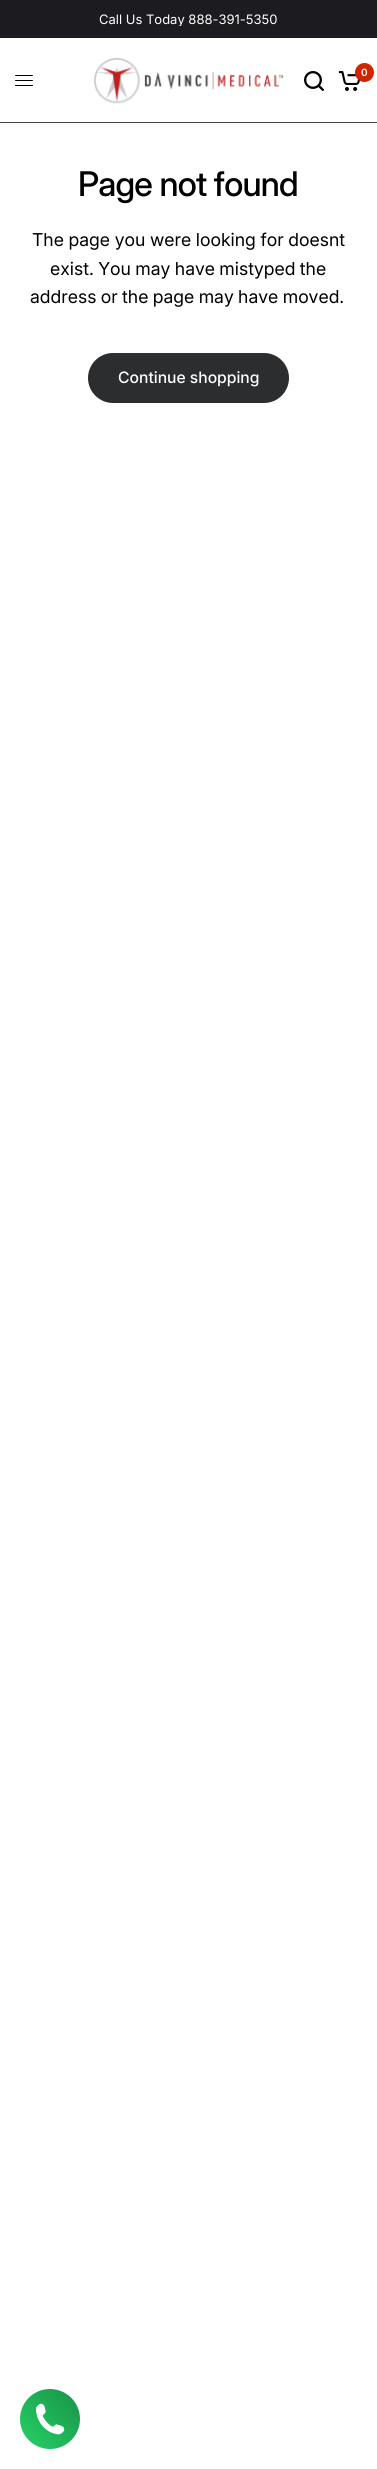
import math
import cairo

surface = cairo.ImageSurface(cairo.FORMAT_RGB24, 377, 2469)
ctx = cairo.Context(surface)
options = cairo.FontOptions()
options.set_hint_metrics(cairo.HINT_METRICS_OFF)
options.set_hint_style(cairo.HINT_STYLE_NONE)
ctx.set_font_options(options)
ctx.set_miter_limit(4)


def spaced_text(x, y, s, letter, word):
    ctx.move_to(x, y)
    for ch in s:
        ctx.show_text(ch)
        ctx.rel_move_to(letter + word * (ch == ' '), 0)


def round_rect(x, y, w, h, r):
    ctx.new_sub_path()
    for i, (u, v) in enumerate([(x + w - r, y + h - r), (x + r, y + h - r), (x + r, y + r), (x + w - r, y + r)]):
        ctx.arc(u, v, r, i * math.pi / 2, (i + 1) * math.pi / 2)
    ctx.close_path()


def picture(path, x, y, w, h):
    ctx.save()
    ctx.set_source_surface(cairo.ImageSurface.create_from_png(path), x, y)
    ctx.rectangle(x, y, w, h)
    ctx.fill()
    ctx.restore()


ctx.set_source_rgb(0.106, 0.106, 0.125)
ctx.paint()
ctx.save()
ctx.rectangle(15, 12, 347, 14)
ctx.clip()
ctx.select_font_face("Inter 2")
ctx.set_font_size(13)
ctx.set_source_rgb(1, 1, 1)
ctx.move_to(99, 24)
ctx.show_text("Call Us Today 888-391-5350")
ctx.restore()
ctx.set_source_rgb(1, 1, 1)
ctx.rectangle(0, 38, 377, 84)
ctx.fill()
picture("img1.png", 94, 58, 190, 46)
picture("img2.png", 304, 71, 20, 20)
picture("img3.png", 338, 71, 22, 20)
ctx.set_source_rgb(0.827, 0.137, 0)
ctx.arc(364.5, 72.5, 9.5, 0, 2 * math.pi)
ctx.fill()
ctx.select_font_face("Inter SemiBold")
ctx.set_font_size(10)
ctx.set_source_rgb(1, 1, 1)
ctx.move_to(361, 76)
ctx.show_text("0")
ctx.set_source_rgb(0, 0, 0)
round_rect(15, 75, 18, 1, 0.5)
ctx.fill()
round_rect(15, 80, 18, 1, 0.5)
ctx.fill()
round_rect(15, 85, 18, 1, 0.5)
ctx.fill()
ctx.set_source_rgb(0.271, 0.271, 0.271)
ctx.rectangle(0, 122, 377, 1)
ctx.fill()
ctx.set_source_rgb(1, 1, 1)
ctx.rectangle(0, 123, 377, 2346)
ctx.fill()
ctx.select_font_face("Inter Medium")
ctx.set_font_size(34)
ctx.set_source_rgb(0, 0, 0)
spaced_text(78, 196, "Page not found", -0.75, 0)
ctx.select_font_face("Inter")
ctx.set_font_size(17.8)
spaced_text(32, 246, "The page you were looking for doesnt", 0, -0.25)
spaced_text(50, 275, "exist. You may have mistyped the", 0, -0.5)
spaced_text(30, 303, "address or the page may have moved.", 0, -0.5)
ctx.set_source_rgb(0.173, 0.176, 0.18)
round_rect(88, 353, 201, 50, 25)
ctx.fill()
ctx.select_font_face("Inter 2 Medium")
ctx.set_font_size(15.75)
ctx.set_source_rgb(1, 1, 1)
ctx.move_to(118, 383)
ctx.show_text("Continue shopping")
gradient = cairo.LinearGradient(20, 2449, 80, 2389)
gradient.add_color_stop_rgba(0, 0.145, 0.827, 0.404, 1)
gradient.add_color_stop_rgba(1, 0.098, 0.569, 0.278, 1)
ctx.set_source(gradient)
ctx.new_path()
ctx.arc(50, 2419, 30, 0, 2 * math.pi)
ctx.fill()
picture("img4.png", 36, 2403, 29, 32)
surface.write_to_png("page.png")
